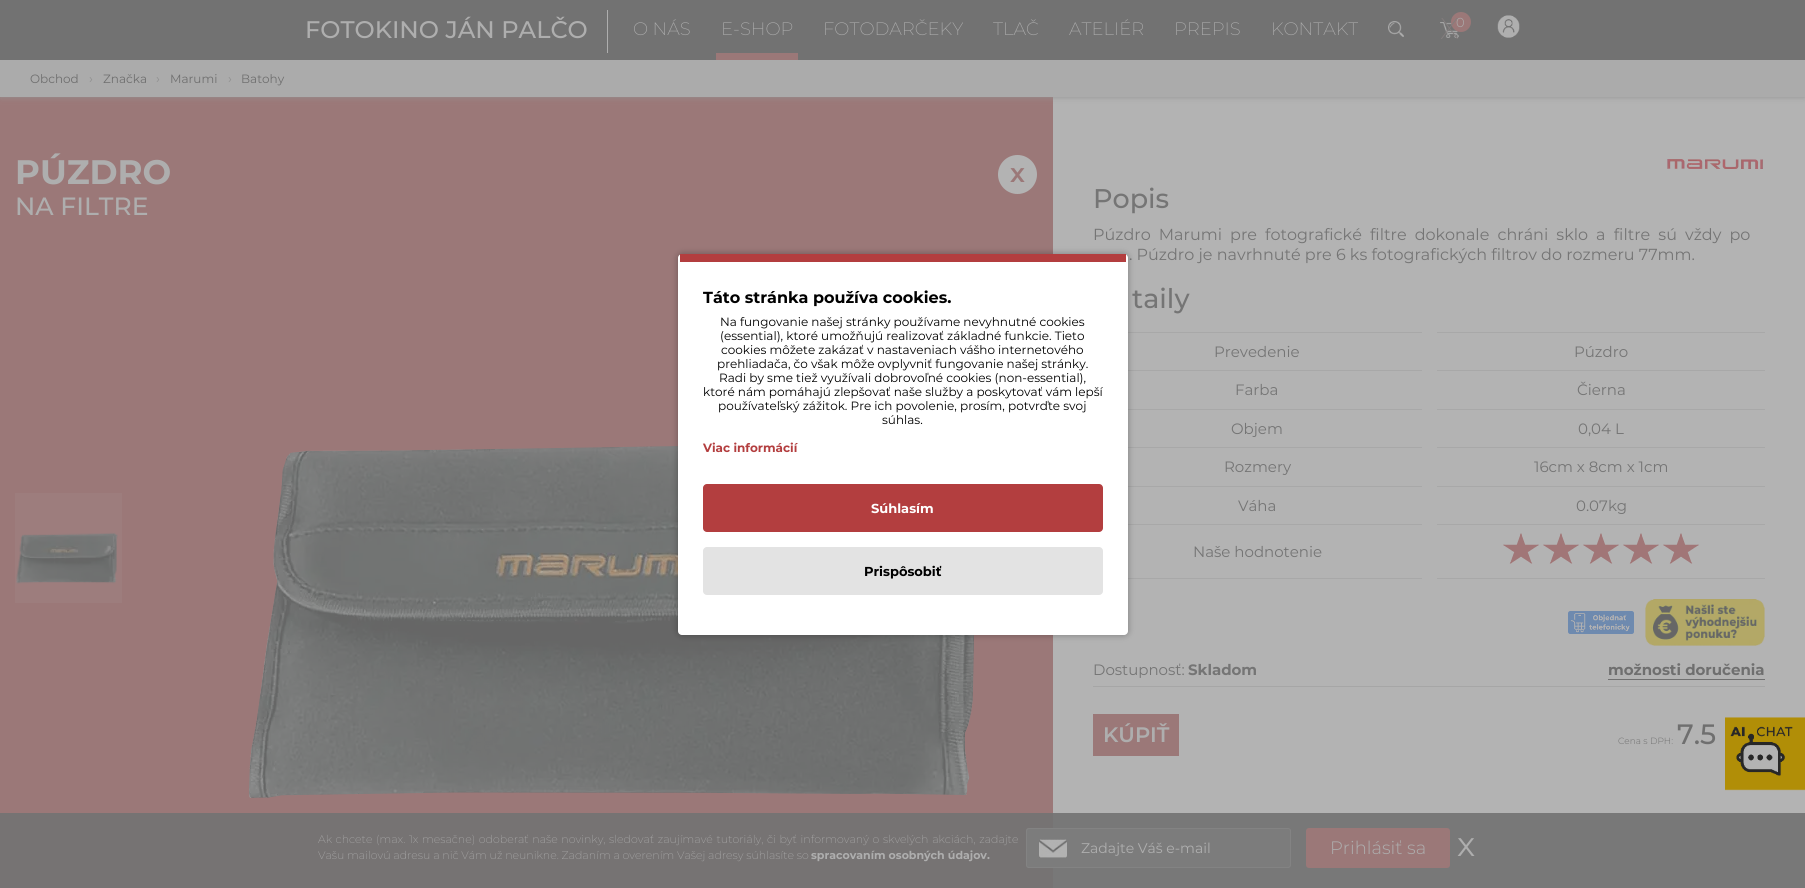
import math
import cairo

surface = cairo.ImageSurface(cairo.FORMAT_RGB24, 1805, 888)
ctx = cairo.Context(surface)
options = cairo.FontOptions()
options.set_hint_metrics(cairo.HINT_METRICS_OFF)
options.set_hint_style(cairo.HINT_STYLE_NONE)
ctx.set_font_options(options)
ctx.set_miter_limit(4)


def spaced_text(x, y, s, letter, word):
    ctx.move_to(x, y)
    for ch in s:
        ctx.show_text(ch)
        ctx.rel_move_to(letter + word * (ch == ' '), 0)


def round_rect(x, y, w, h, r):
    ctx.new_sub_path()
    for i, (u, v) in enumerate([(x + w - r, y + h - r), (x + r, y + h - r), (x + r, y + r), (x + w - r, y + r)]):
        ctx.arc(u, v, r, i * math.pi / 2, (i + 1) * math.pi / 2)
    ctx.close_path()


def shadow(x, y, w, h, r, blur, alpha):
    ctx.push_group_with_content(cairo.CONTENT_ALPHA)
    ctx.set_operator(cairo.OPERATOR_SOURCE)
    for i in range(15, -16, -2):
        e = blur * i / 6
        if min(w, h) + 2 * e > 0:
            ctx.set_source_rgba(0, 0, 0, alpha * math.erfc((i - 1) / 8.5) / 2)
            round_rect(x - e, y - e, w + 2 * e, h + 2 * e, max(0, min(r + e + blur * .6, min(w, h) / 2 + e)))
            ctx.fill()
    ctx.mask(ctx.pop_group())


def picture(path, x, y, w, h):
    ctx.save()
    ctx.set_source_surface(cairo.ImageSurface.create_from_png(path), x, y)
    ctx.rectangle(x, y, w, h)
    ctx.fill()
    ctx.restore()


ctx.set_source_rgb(0.608, 0.471, 0.471)
ctx.paint()
ctx.set_source_rgb(0.702, 0.702, 0.702)
ctx.rectangle(1053, 97, 752, 716)
ctx.fill()
ctx.set_source_rgb(0.58, 0.58, 0.58)
shadow(0, 60, 1805, 37, 0, 3, 1)
ctx.set_source_rgb(0.447, 0.447, 0.447)
ctx.rectangle(0, 0, 1805, 60)
ctx.fill()
ctx.select_font_face("Montserrat Medium")
ctx.set_font_size(24)
ctx.set_source_rgb(0.682, 0.682, 0.682)
ctx.move_to(305, 38)
ctx.show_text("FOTOKINO JÁN PALČO")
ctx.rectangle(607, 10, 1, 43)
ctx.fill()
ctx.select_font_face("Montserrat ExtraLight")
ctx.set_font_size(18)
ctx.move_to(633, 35)
ctx.show_text("O NÁS")
ctx.set_source_rgb(0.608, 0.471, 0.471)
ctx.rectangle(716, 53, 82, 7)
ctx.fill()
ctx.set_source_rgb(0.682, 0.682, 0.682)
ctx.move_to(721, 35)
ctx.show_text("E-SHOP")
ctx.move_to(823, 35)
ctx.show_text("FOTODARČEKY")
ctx.move_to(993, 35)
ctx.show_text("TLAČ")
ctx.move_to(1069, 35)
ctx.show_text("ATELIÉR")
ctx.move_to(1174, 35)
ctx.show_text("PREPIS")
ctx.move_to(1271, 35)
ctx.show_text("KONTAKT")
picture("img1.png", 1388, 21, 16, 16)
picture("img2.png", 1440, 22, 19, 16)
ctx.set_source_rgb(0.608, 0.471, 0.471)
ctx.arc(1461, 22, 10, 0, 2 * math.pi)
ctx.fill()
ctx.select_font_face("Montserrat Light")
ctx.set_font_size(13)
ctx.set_source_rgb(0.682, 0.682, 0.682)
ctx.move_to(1456, 27)
ctx.show_text("0")
ctx.select_font_face("Montserrat ExtraLight")
ctx.set_font_size(30)
ctx.set_source_rgb(0.514, 0.49, 0.49)
ctx.move_to(1440, 39)
ctx.show_text("X")
picture("img3.png", 1497, 15, 23, 23)
ctx.set_source_rgb(0.671, 0.671, 0.671)
ctx.rectangle(0, 60, 1805, 37)
ctx.fill()
ctx.select_font_face("Montserrat Thin")
ctx.set_font_size(12)
ctx.set_source_rgb(0.435, 0.435, 0.435)
ctx.move_to(30, 83)
ctx.show_text("Obchod")
ctx.set_font_size(13)
ctx.set_source_rgb(0.561, 0.561, 0.561)
ctx.move_to(89, 83)
ctx.show_text("›")
ctx.set_font_size(12)
ctx.set_source_rgb(0.435, 0.435, 0.435)
ctx.move_to(103, 83)
ctx.show_text("Značka")
ctx.set_font_size(13)
ctx.set_source_rgb(0.561, 0.561, 0.561)
ctx.move_to(156, 83)
ctx.show_text("›")
ctx.set_font_size(12)
ctx.set_source_rgb(0.435, 0.435, 0.435)
ctx.move_to(170, 83)
ctx.show_text("Marumi")
ctx.set_font_size(13)
ctx.set_source_rgb(0.561, 0.561, 0.561)
ctx.move_to(228, 83)
ctx.show_text("›")
ctx.set_font_size(12)
ctx.set_source_rgb(0.435, 0.435, 0.435)
ctx.move_to(241, 83)
ctx.show_text("Batohy")
ctx.set_source_rgb(0.463, 0.451, 0.451)
ctx.rectangle(0, 813, 1053, 75)
ctx.fill()
ctx.set_source_rgb(0.471, 0.471, 0.471)
ctx.rectangle(1053, 813, 752, 75)
ctx.fill()
ctx.select_font_face("Montserrat", cairo.FONT_SLANT_NORMAL, cairo.FONT_WEIGHT_BOLD)
ctx.set_font_size(34)
ctx.set_source_rgb(0.682, 0.682, 0.682)
ctx.move_to(15, 184)
ctx.show_text("PÚZDRO")
ctx.set_source_rgb(0.702, 0.702, 0.702)
ctx.new_path()
ctx.arc(1017.5, 174.5, 19.5, 0, 2 * math.pi)
ctx.fill()
ctx.select_font_face("Montserrat SemiBold")
ctx.set_font_size(26)
ctx.set_source_rgb(0.608, 0.471, 0.471)
ctx.move_to(1010, 182)
ctx.show_text("x")
ctx.select_font_face("Montserrat Medium")
ctx.set_font_size(25)
ctx.set_source_rgb(0.682, 0.682, 0.682)
ctx.move_to(15, 215)
ctx.show_text("NA FILTRE")
ctx.set_source_rgb(0.616, 0.49, 0.49)
ctx.rectangle(15, 493, 107, 110)
ctx.fill()
picture("img4.png", 16, 532, 102, 52)
picture("img5.png", 249, 446, 725, 352)
picture("img6.png", 1667, 159, 96, 10)
ctx.set_font_size(27)
ctx.set_source_rgb(0.459, 0.459, 0.459)
ctx.move_to(1093, 208)
ctx.show_text("Popis")
ctx.select_font_face("Montserrat Thin")
ctx.set_font_size(16)
spaced_text(1093, 240, "Púzdro Marumi pre fotografické filtre dokonale chráni sklo a filtre sú vždy po", 0, 3.9)
ctx.move_to(1129, 260)
ctx.show_text(". Púzdro je navrhnuté pre 6 ks fotografických filtrov do rozmeru 77mm.")
ctx.select_font_face("Montserrat Medium")
ctx.set_font_size(27)
ctx.move_to(1132, 308)
ctx.show_text("taily")
ctx.set_source_rgb(0.659, 0.659, 0.659)
ctx.rectangle(1128, 332, 294, 1)
ctx.fill()
ctx.select_font_face("Montserrat Thin")
ctx.set_font_size(15)
ctx.set_source_rgb(0.459, 0.459, 0.459)
ctx.move_to(1214, 357)
ctx.show_text("Prevedenie")
ctx.set_source_rgb(0.659, 0.659, 0.659)
ctx.rectangle(1437, 332, 328, 1)
ctx.fill()
ctx.set_source_rgb(0.459, 0.459, 0.459)
ctx.move_to(1574, 357)
ctx.show_text("Púzdro")
ctx.set_source_rgb(0.659, 0.659, 0.659)
ctx.rectangle(1128, 370, 294, 1)
ctx.fill()
ctx.set_source_rgb(0.459, 0.459, 0.459)
ctx.move_to(1235, 395)
ctx.show_text("Farba")
ctx.set_source_rgb(0.659, 0.659, 0.659)
ctx.rectangle(1437, 370, 328, 1)
ctx.fill()
ctx.set_source_rgb(0.459, 0.459, 0.459)
ctx.move_to(1577, 395)
ctx.show_text("Čierna")
ctx.set_source_rgb(0.659, 0.659, 0.659)
ctx.rectangle(1128, 409, 294, 1)
ctx.fill()
ctx.set_source_rgb(0.459, 0.459, 0.459)
ctx.move_to(1231, 434)
ctx.show_text("Objem")
ctx.set_source_rgb(0.659, 0.659, 0.659)
ctx.rectangle(1437, 409, 328, 1)
ctx.fill()
ctx.set_source_rgb(0.459, 0.459, 0.459)
ctx.move_to(1578, 434)
ctx.show_text("0,04 L")
ctx.set_source_rgb(0.659, 0.659, 0.659)
ctx.rectangle(1128, 447, 294, 1)
ctx.fill()
ctx.set_source_rgb(0.459, 0.459, 0.459)
ctx.move_to(1224, 472)
ctx.show_text("Rozmery")
ctx.set_source_rgb(0.659, 0.659, 0.659)
ctx.rectangle(1437, 447, 328, 1)
ctx.fill()
ctx.set_source_rgb(0.459, 0.459, 0.459)
ctx.move_to(1534, 472)
ctx.show_text("16cm x 8cm x 1cm")
ctx.set_source_rgb(0.659, 0.659, 0.659)
ctx.rectangle(1128, 486, 294, 1)
ctx.fill()
ctx.set_source_rgb(0.459, 0.459, 0.459)
ctx.move_to(1238, 511)
ctx.show_text("Váha")
ctx.set_source_rgb(0.659, 0.659, 0.659)
ctx.rectangle(1437, 486, 328, 1)
ctx.fill()
ctx.set_source_rgb(0.459, 0.459, 0.459)
ctx.move_to(1576, 511)
ctx.show_text("0.07kg")
ctx.set_source_rgb(0.659, 0.659, 0.659)
ctx.rectangle(1128, 524, 294, 1)
ctx.fill()
ctx.rectangle(1128, 578, 294, 1)
ctx.fill()
ctx.set_source_rgb(0.459, 0.459, 0.459)
ctx.move_to(1193, 557)
ctx.show_text("Naše hodnotenie")
ctx.set_source_rgb(0.659, 0.659, 0.659)
ctx.rectangle(1437, 524, 328, 1)
ctx.fill()
ctx.rectangle(1437, 578, 328, 1)
ctx.fill()
picture("img7.png", 1503, 533, 36, 31)
picture("img7.png", 1543, 533, 36, 31)
picture("img7.png", 1583, 533, 36, 31)
picture("img7.png", 1623, 533, 36, 31)
picture("img7.png", 1663, 533, 36, 31)
picture("img8.png", 1568, 611, 66, 23)
picture("img9.png", 1645, 599, 120, 47)
ctx.set_source_rgb(0.651, 0.651, 0.651)
ctx.rectangle(1093, 686, 672, 1)
ctx.fill()
ctx.set_source_rgb(0.459, 0.459, 0.459)
ctx.move_to(1093, 675)
ctx.show_text("Dostupnosť:")
ctx.select_font_face("Montserrat", cairo.FONT_SLANT_NORMAL, cairo.FONT_WEIGHT_BOLD)
ctx.move_to(1188, 675)
ctx.show_text("Skladom")
ctx.set_source_rgb(0.435, 0.435, 0.435)
ctx.move_to(1608, 675)
ctx.show_text("možnosti doručenia")
ctx.set_source_rgb(0.439, 0.439, 0.439)
ctx.rectangle(1608, 679, 157, 1)
ctx.fill()
ctx.set_source_rgb(0.608, 0.471, 0.471)
ctx.rectangle(1093, 714, 86, 42)
ctx.fill()
ctx.select_font_face("Montserrat SemiBold")
ctx.set_font_size(21)
ctx.set_source_rgb(0.682, 0.682, 0.682)
ctx.move_to(1103, 742)
ctx.show_text("KÚPIŤ")
ctx.select_font_face("Montserrat Light")
ctx.set_font_size(9)
ctx.set_source_rgb(0.435, 0.435, 0.435)
ctx.move_to(1618, 744)
ctx.show_text("Cena s DPH:")
ctx.select_font_face("Montserrat Medium")
ctx.set_font_size(28)
ctx.move_to(1677, 744)
ctx.show_text("7.5")
ctx.set_source_rgb(0, 0, 0)
shadow(678, 254, 450, 381, 4, 3.5, 0.3)
ctx.set_source_rgb(1, 1, 1)
round_rect(678, 254, 450, 381, 4)
ctx.fill()
ctx.set_source_rgb(0.702, 0.243, 0.247)
ctx.rectangle(680, 254, 446, 8)
ctx.fill()
ctx.select_font_face("Montserrat", cairo.FONT_SLANT_NORMAL, cairo.FONT_WEIGHT_BOLD)
ctx.set_font_size(16)
ctx.set_source_rgb(0, 0, 0)
ctx.move_to(703, 303)
ctx.show_text("Táto stránka používa cookies.")
ctx.select_font_face("Montserrat Thin")
ctx.set_font_size(12)
ctx.move_to(720, 326)
ctx.show_text("Na fungovanie našej stránky používame nevyhnutné cookies")
ctx.move_to(720, 340)
ctx.show_text("(essential), ktoré umožňujú realizovať základné funkcie. Tieto")
ctx.move_to(721, 354)
ctx.show_text("cookies môžete zakázať v nastaveniach vášho internetového")
ctx.move_to(717, 368)
ctx.show_text("prehliadača, čo však môže ovplyvniť fungovanie našej stránky.")
ctx.move_to(719, 382)
ctx.show_text("Radi by sme tiež využívali dobrovoľné cookies (non-essential),")
ctx.move_to(703, 396)
ctx.show_text("ktoré nám pomáhajú zlepšovať naše služby a poskytovať vám lepší")
ctx.move_to(718, 410)
ctx.show_text("používateľský zážitok. Pre ich povolenie, prosím, potvrďte svoj")
ctx.move_to(882, 424)
ctx.show_text("súhlas.")
ctx.select_font_face("Montserrat", cairo.FONT_SLANT_NORMAL, cairo.FONT_WEIGHT_BOLD)
ctx.set_source_rgb(0.702, 0.243, 0.247)
ctx.move_to(703, 452)
ctx.show_text("Viac informácií")
round_rect(703, 484, 400, 48, 4)
ctx.fill()
ctx.set_font_size(13)
ctx.set_source_rgb(1, 1, 1)
ctx.move_to(871, 513)
ctx.show_text("Súhlasím")
ctx.set_source_rgb(0.89, 0.89, 0.89)
round_rect(703, 547, 400, 48, 4)
ctx.fill()
ctx.set_source_rgb(0, 0, 0)
ctx.move_to(864, 576)
ctx.show_text("Prispôsobiť")
picture("img10.png", 1725, 717, 80, 74)
ctx.select_font_face("Montserrat ExtraLight")
ctx.set_font_size(11)
ctx.set_source_rgb(0.682, 0.682, 0.682)
spaced_text(318, 843, "Ak chcete (max. 1x mesačne) odoberať naše novinky, sledovať zaujímavé tutoriály, či byť informovaný o skvelých akciách, zadajte", 0, 0.9)
ctx.move_to(318, 859)
ctx.show_text("Vašu mailovú adresu a nič Vám už neunikne. Zadaním a overením Vašej adresy súhlasíte so")
ctx.select_font_face("Montserrat", cairo.FONT_SLANT_NORMAL, cairo.FONT_WEIGHT_BOLD)
ctx.move_to(811, 859)
ctx.show_text("spracovaním osobných údajov.")
ctx.set_source_rgb(0.486, 0.486, 0.486)
round_rect(1026, 828, 265, 40, 3)
ctx.fill()
picture("img11.png", 1039, 839, 28, 19)
round_rect(1026.5, 828.5, 264, 39, 2.5)
ctx.set_source_rgb(0.514, 0.514, 0.514)
ctx.set_line_width(1)
ctx.stroke()
ctx.select_font_face("Montserrat Thin")
ctx.set_font_size(14)
ctx.set_source_rgb(0.682, 0.682, 0.682)
ctx.move_to(1081, 853)
ctx.show_text("Zadajte Váš e-mail")
ctx.set_source_rgb(0.608, 0.471, 0.471)
round_rect(1306, 828, 144, 40, 3)
ctx.fill()
ctx.select_font_face("Montserrat Light")
ctx.set_font_size(18)
ctx.set_source_rgb(0.682, 0.682, 0.682)
ctx.move_to(1330, 854)
ctx.show_text("Prihlásiť sa")
ctx.select_font_face("Montserrat Thin")
ctx.set_font_size(34)
ctx.move_to(1457, 856)
ctx.show_text("x")
surface.write_to_png("page.png")
